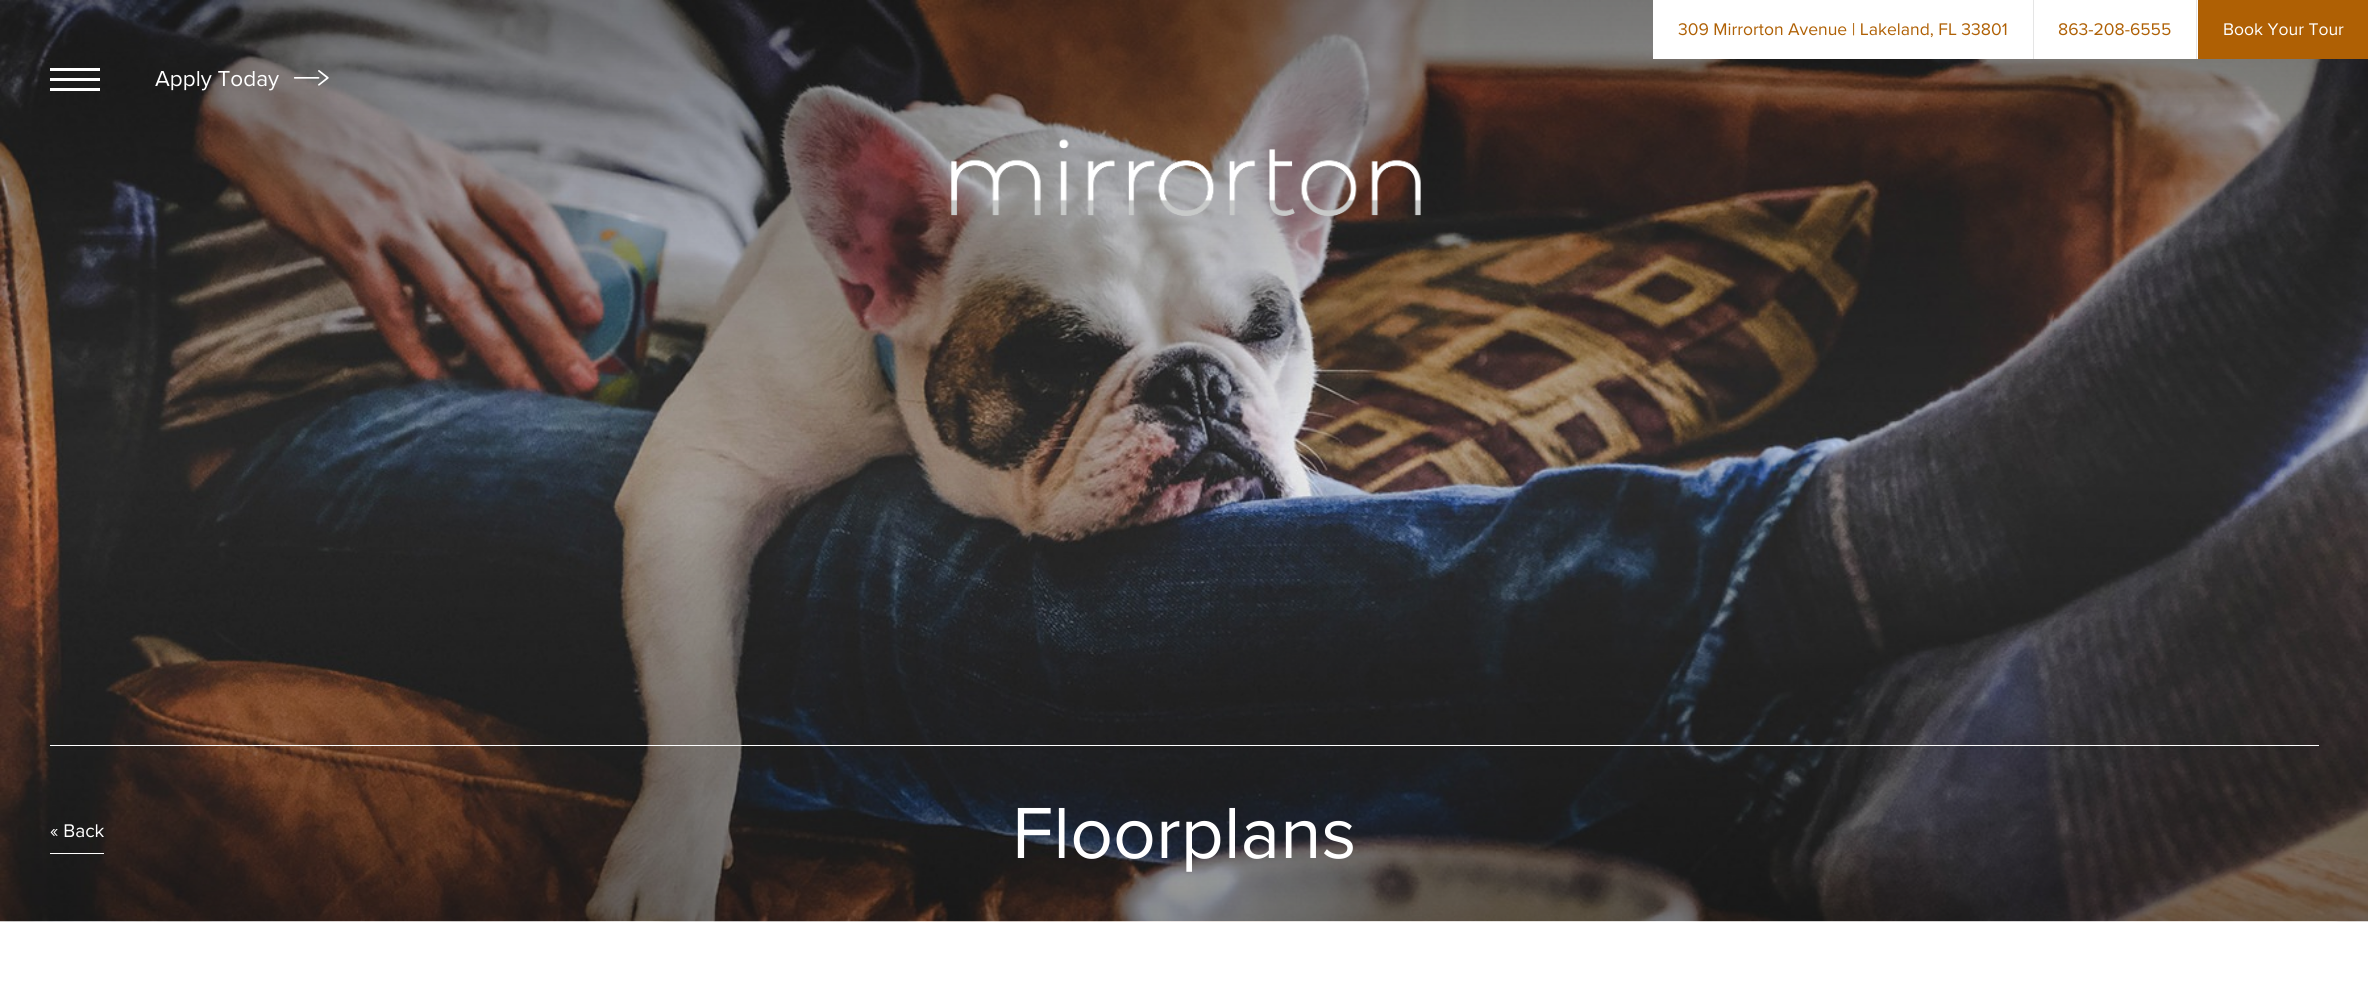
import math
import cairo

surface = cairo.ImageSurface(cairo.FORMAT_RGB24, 2368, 1004)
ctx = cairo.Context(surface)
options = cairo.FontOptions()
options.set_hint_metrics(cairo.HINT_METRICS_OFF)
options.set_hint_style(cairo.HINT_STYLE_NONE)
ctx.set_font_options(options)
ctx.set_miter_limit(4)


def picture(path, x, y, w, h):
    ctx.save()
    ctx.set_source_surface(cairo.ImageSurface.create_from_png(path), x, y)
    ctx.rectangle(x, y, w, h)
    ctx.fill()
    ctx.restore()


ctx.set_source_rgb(1, 1, 1)
ctx.paint()
picture("img3.png", 0, 921, 2368, 1)
picture("img4.png", 0, 0, 2368, 922)
ctx.set_source_rgb(1, 1, 1)
ctx.rectangle(1653, 0, 380, 59)
ctx.fill()
ctx.set_source_rgb(0.898, 0.898, 0.898)
ctx.rectangle(2033, 0, 1, 59)
ctx.fill()
ctx.select_font_face("Proxima Nova")
ctx.set_font_size(17.5)
ctx.set_source_rgb(0.686, 0.376, 0.016)
ctx.move_to(1678, 35)
ctx.show_text("309 Mirrorton Avenue | Lakeland, FL 33801")
ctx.set_source_rgb(1, 1, 1)
ctx.rectangle(2034, 0, 164, 59)
ctx.fill()
ctx.set_source_rgb(0.898, 0.898, 0.898)
ctx.rectangle(2196, 0, 1, 59)
ctx.fill()
ctx.set_source_rgb(0.686, 0.376, 0.016)
ctx.move_to(2058, 35)
ctx.show_text("863-208-6555")
ctx.rectangle(2198, 0, 170, 59)
ctx.fill()
ctx.set_source_rgb(1, 1, 1)
ctx.move_to(2223, 35)
ctx.show_text("Book Your Tour")
ctx.rectangle(50, 68, 50, 3)
ctx.fill()
ctx.rectangle(50, 78, 50, 3)
ctx.fill()
ctx.rectangle(50, 88, 50, 3)
ctx.fill()
ctx.set_font_size(22.5)
ctx.move_to(155, 86)
ctx.show_text("Apply Today")
picture("img1.png", 294, 70, 35, 16)
picture("img2.png", 951, 139, 470, 77)
ctx.rectangle(50, 745, 2269, 1)
ctx.fill()
ctx.rectangle(50, 853, 54, 1)
ctx.fill()
ctx.set_font_size(19)
ctx.move_to(50, 837)
ctx.show_text("« Back")
ctx.set_font_size(75)
ctx.move_to(1012, 858)
ctx.show_text("Floorplans")
surface.write_to_png("page.png")
